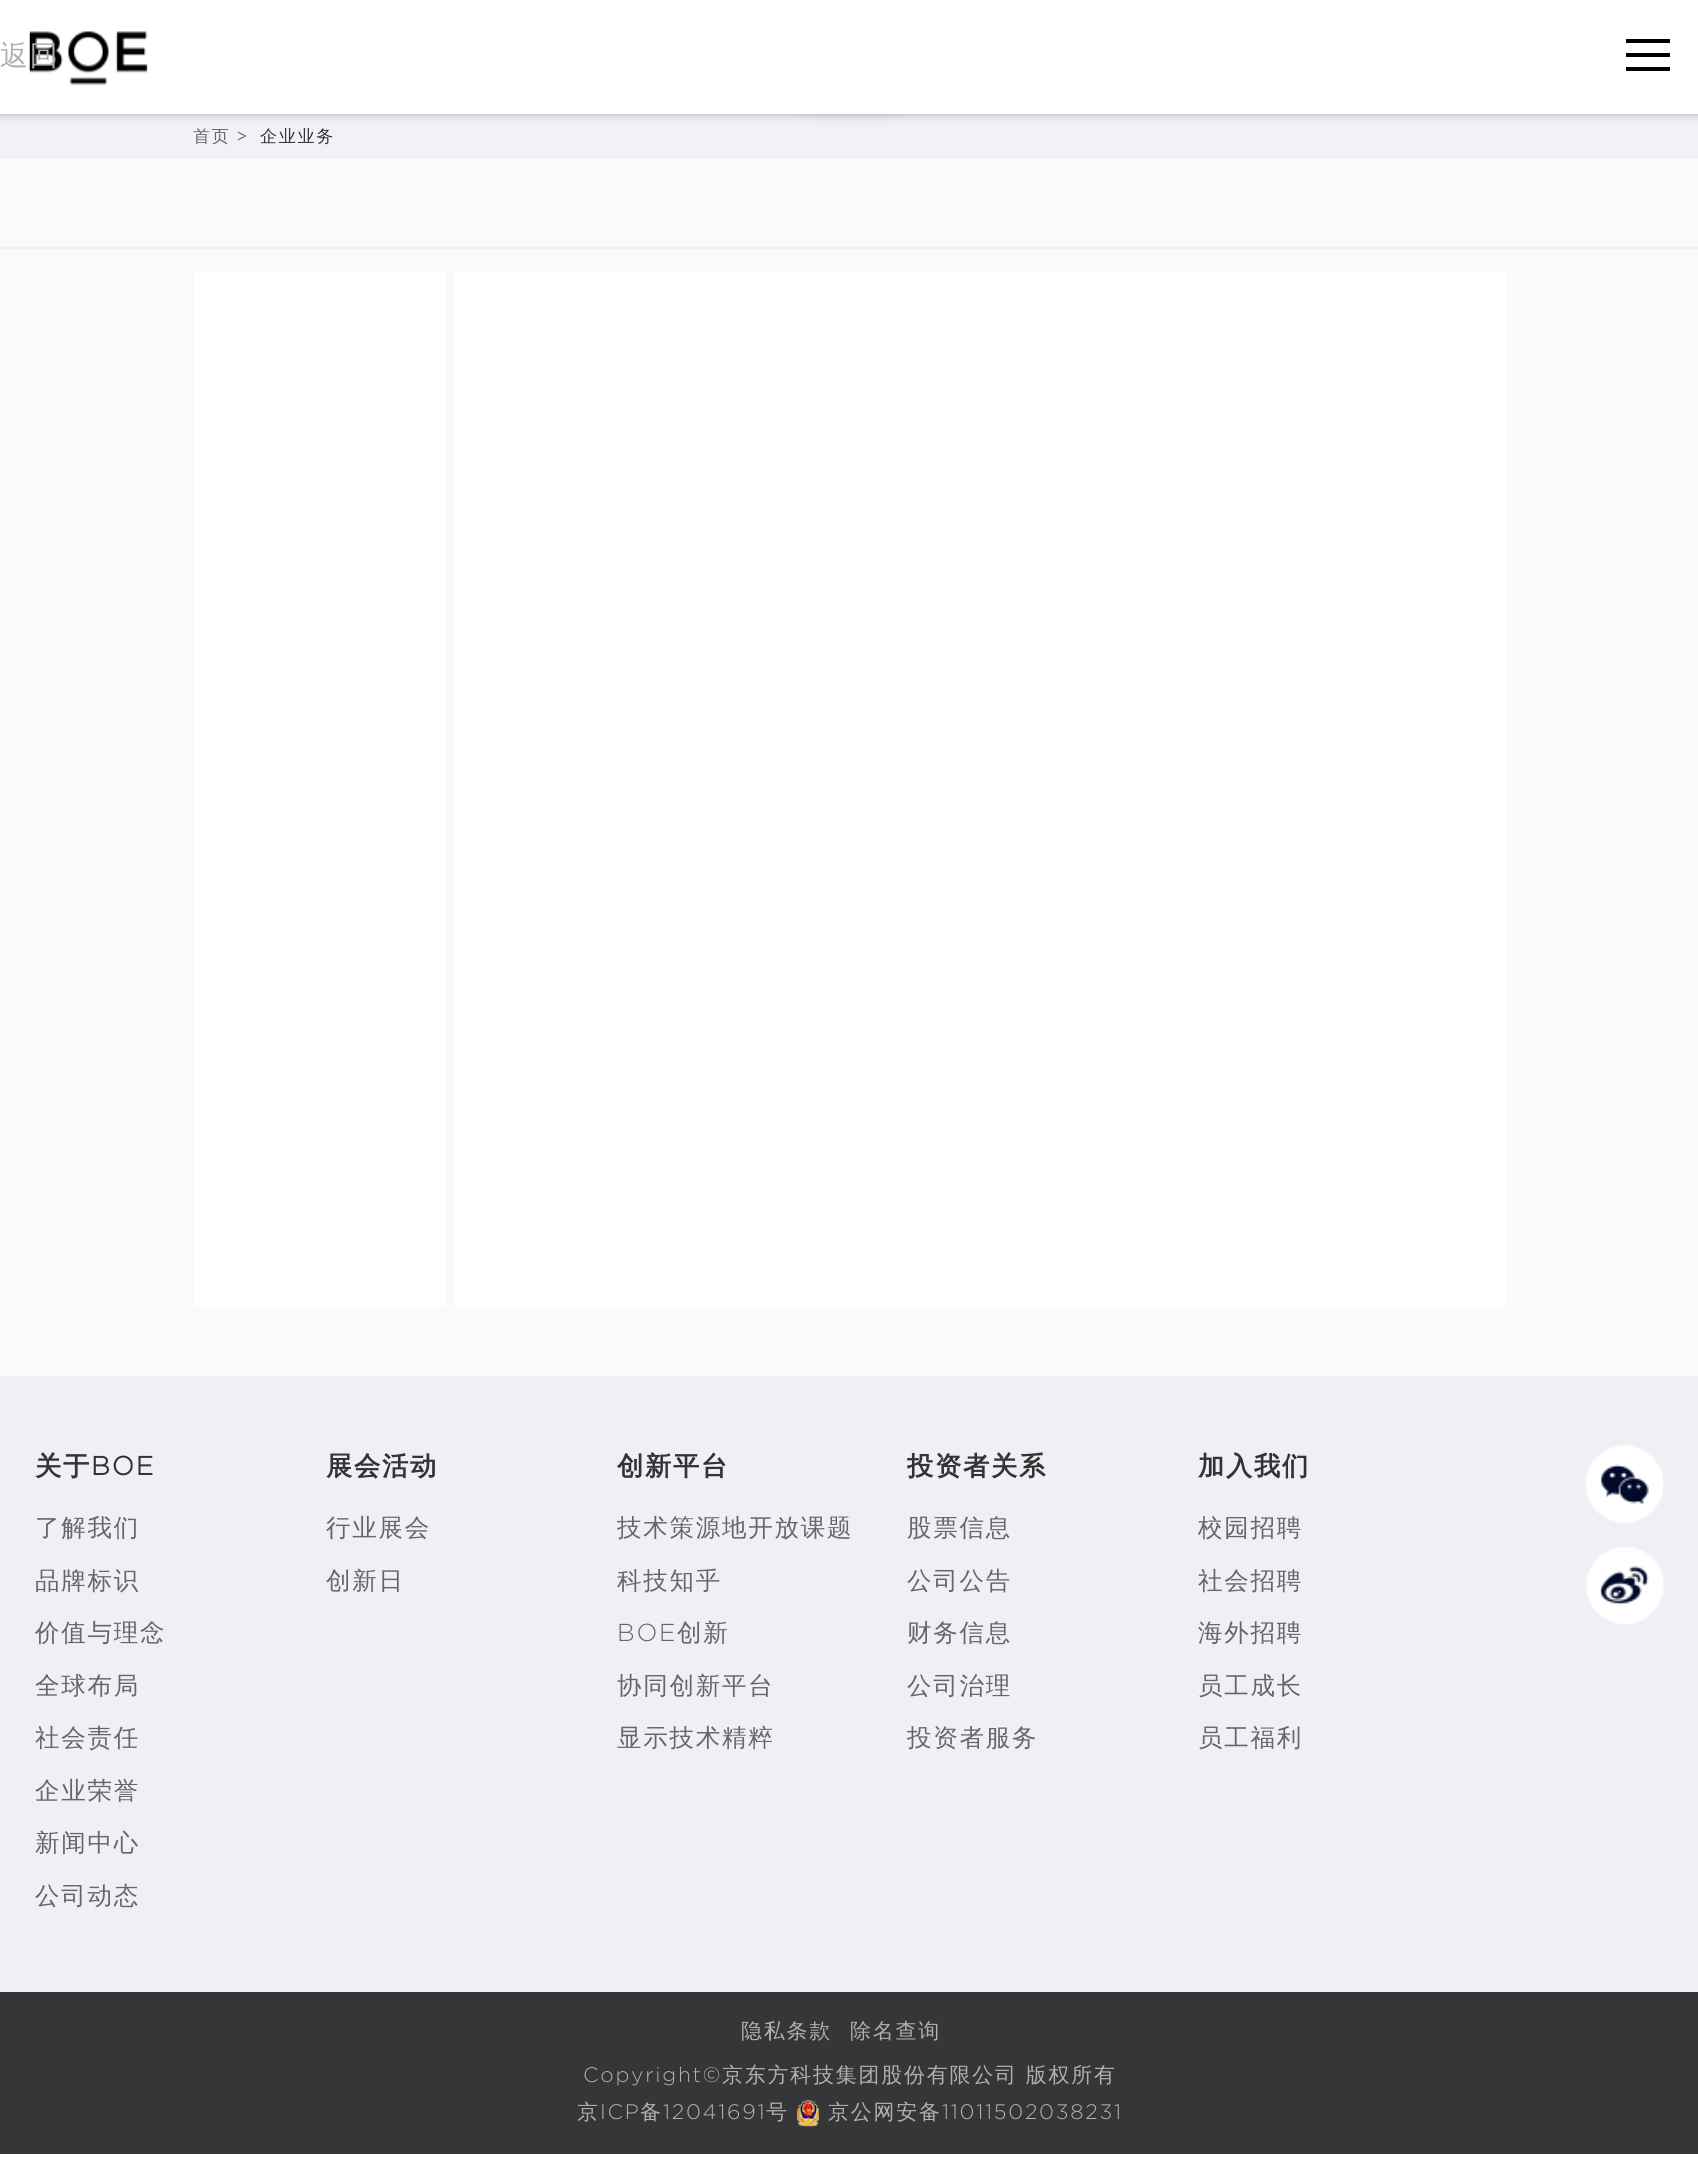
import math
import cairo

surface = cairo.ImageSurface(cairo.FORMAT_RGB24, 1698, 2158)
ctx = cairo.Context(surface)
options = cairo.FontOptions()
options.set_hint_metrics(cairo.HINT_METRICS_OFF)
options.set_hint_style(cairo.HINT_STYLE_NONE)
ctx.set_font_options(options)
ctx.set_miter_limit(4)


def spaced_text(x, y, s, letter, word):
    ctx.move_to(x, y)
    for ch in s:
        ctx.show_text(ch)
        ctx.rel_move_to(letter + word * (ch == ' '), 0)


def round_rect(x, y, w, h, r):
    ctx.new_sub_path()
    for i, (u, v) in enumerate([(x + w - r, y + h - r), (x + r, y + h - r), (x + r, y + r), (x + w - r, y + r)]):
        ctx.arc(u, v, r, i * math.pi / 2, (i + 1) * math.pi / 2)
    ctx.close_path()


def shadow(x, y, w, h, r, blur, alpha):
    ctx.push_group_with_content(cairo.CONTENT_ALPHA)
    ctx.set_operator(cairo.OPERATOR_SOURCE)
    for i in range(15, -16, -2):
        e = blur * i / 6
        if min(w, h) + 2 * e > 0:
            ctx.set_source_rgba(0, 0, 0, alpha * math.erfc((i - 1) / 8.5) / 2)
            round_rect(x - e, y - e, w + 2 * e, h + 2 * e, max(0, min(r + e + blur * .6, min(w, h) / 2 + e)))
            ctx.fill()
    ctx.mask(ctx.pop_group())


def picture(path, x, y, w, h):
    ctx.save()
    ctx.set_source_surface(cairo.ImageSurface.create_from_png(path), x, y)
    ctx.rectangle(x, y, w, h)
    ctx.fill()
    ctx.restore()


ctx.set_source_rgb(1, 1, 1)
ctx.paint()
ctx.set_source_rgb(0.941, 0.949, 0.965)
ctx.rectangle(0, 114, 1698, 45)
ctx.fill()
ctx.set_source_rgb(0, 0, 0)
shadow(802, 35, 98, 72, 7, 10.5, 0.15)
shadow(0, 0, 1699, 114, 0, 4.5, 0.3)
ctx.set_source_rgb(1, 1, 1)
ctx.rectangle(0, 0, 1698, 114)
ctx.fill()
picture("img1.png", 29, 31, 119, 55)
ctx.select_font_face("WenQuanYi Zen Hei Medium")
ctx.set_font_size(28)
ctx.set_source_rgb(0.69, 0.69, 0.69)
spaced_text(0, 65, "返回", 1.75, 0)
ctx.set_source_rgb(0, 0, 0)
ctx.rectangle(1626, 53, 44, 4)
ctx.fill()
ctx.rectangle(1626, 39, 44, 4)
ctx.fill()
ctx.rectangle(1626, 67, 44, 4)
ctx.fill()
ctx.set_font_size(17)
ctx.set_source_rgb(0.4, 0.4, 0.4)
spaced_text(193, 142, "首页", 1.75, 0)
ctx.select_font_face("Gotham Light")
ctx.set_source_rgb(0.2, 0.2, 0.2)
spaced_text(236, 142, ">", 1.75, 0)
ctx.select_font_face("WenQuanYi Zen Hei Medium")
spaced_text(260, 142, "企业业务", 1.75, 0)
ctx.set_source_rgb(0.976, 0.98, 0.988)
ctx.rectangle(0, 159, 1698, 1217)
ctx.fill()
ctx.set_source_rgb(0.937, 0.941, 0.949)
ctx.rectangle(0, 247, 1698, 2)
ctx.fill()
ctx.set_source_rgb(1, 1, 1)
ctx.rectangle(194, 271, 251, 1036)
ctx.fill()
ctx.rectangle(455, 271, 1052, 1036)
ctx.fill()
ctx.set_source_rgb(0.933, 0.941, 0.961)
ctx.rectangle(0, 1376, 1698, 616)
ctx.fill()
ctx.select_font_face("WenQuanYi Zen Hei", cairo.FONT_SLANT_NORMAL, cairo.FONT_WEIGHT_BOLD)
ctx.set_font_size(26.25)
ctx.set_source_rgb(0.2, 0.2, 0.2)
spaced_text(35, 1475, "关于", 1.75, 0)
ctx.select_font_face("Gotham", cairo.FONT_SLANT_NORMAL, cairo.FONT_WEIGHT_BOLD)
spaced_text(91, 1475, "BOE", 1.75, 0)
ctx.select_font_face("WenQuanYi Zen Hei Medium")
ctx.set_font_size(24.5)
ctx.set_source_rgb(0.4, 0.4, 0.4)
spaced_text(35, 1536, "了解我们", 1.75, 0)
spaced_text(35, 1589, "品牌标识", 1.75, 0)
spaced_text(35, 1641, "价值与理念", 1.75, 0)
spaced_text(35, 1694, "全球布局", 1.75, 0)
spaced_text(35, 1746, "社会责任", 1.75, 0)
spaced_text(35, 1799, "企业荣誉", 1.75, 0)
spaced_text(35, 1851, "新闻中心", 1.75, 0)
spaced_text(35, 1904, "公司动态", 1.75, 0)
ctx.select_font_face("WenQuanYi Zen Hei", cairo.FONT_SLANT_NORMAL, cairo.FONT_WEIGHT_BOLD)
ctx.set_font_size(26.25)
ctx.set_source_rgb(0.2, 0.2, 0.2)
spaced_text(326, 1475, "展会活动", 1.75, 0)
ctx.select_font_face("WenQuanYi Zen Hei Medium")
ctx.set_font_size(24.5)
ctx.set_source_rgb(0.4, 0.4, 0.4)
spaced_text(326, 1536, "行业展会", 1.75, 0)
spaced_text(326, 1589, "创新日", 1.75, 0)
ctx.select_font_face("WenQuanYi Zen Hei", cairo.FONT_SLANT_NORMAL, cairo.FONT_WEIGHT_BOLD)
ctx.set_font_size(26.25)
ctx.set_source_rgb(0.2, 0.2, 0.2)
spaced_text(617, 1475, "创新平台", 1.75, 0)
ctx.select_font_face("WenQuanYi Zen Hei Medium")
ctx.set_font_size(24.5)
ctx.set_source_rgb(0.4, 0.4, 0.4)
spaced_text(617, 1536, "技术策源地开放课题", 1.75, 0)
spaced_text(617, 1589, "科技知乎", 1.75, 0)
ctx.select_font_face("Gotham Light")
spaced_text(617, 1641, "BOE", 1.75, 0)
ctx.select_font_face("WenQuanYi Zen Hei Medium")
spaced_text(677, 1641, "创新", 1.75, 0)
spaced_text(617, 1694, "协同创新平台", 1.75, 0)
spaced_text(617, 1746, "显示技术精粹", 1.75, 0)
ctx.select_font_face("WenQuanYi Zen Hei", cairo.FONT_SLANT_NORMAL, cairo.FONT_WEIGHT_BOLD)
ctx.set_font_size(26.25)
ctx.set_source_rgb(0.2, 0.2, 0.2)
spaced_text(907, 1475, "投资者关系", 1.75, 0)
ctx.select_font_face("WenQuanYi Zen Hei Medium")
ctx.set_font_size(24.5)
ctx.set_source_rgb(0.4, 0.4, 0.4)
spaced_text(907, 1536, "股票信息", 1.75, 0)
spaced_text(907, 1589, "公司公告", 1.75, 0)
spaced_text(907, 1641, "财务信息", 1.75, 0)
spaced_text(907, 1694, "公司治理", 1.75, 0)
spaced_text(907, 1746, "投资者服务", 1.75, 0)
ctx.select_font_face("WenQuanYi Zen Hei", cairo.FONT_SLANT_NORMAL, cairo.FONT_WEIGHT_BOLD)
ctx.set_font_size(26.25)
ctx.set_source_rgb(0.2, 0.2, 0.2)
spaced_text(1198, 1475, "加入我们", 1.75, 0)
ctx.select_font_face("WenQuanYi Zen Hei Medium")
ctx.set_font_size(24.5)
ctx.set_source_rgb(0.4, 0.4, 0.4)
spaced_text(1198, 1536, "校园招聘", 1.75, 0)
spaced_text(1198, 1589, "社会招聘", 1.75, 0)
spaced_text(1198, 1641, "海外招聘", 1.75, 0)
spaced_text(1198, 1694, "员工成长", 1.75, 0)
spaced_text(1198, 1746, "员工福利", 1.75, 0)
picture("img2.png", 1585, 1445, 79, 78)
picture("img3.png", 1585, 1547, 79, 77)
ctx.set_source_rgb(0.204, 0.212, 0.216)
ctx.rectangle(0, 1992, 1698, 162)
ctx.fill()
ctx.set_font_size(21)
ctx.set_source_rgb(0.69, 0.69, 0.69)
spaced_text(741, 2038, "隐私条款", 1.75, 0)
spaced_text(850, 2038, "除名查询", 1.75, 0)
ctx.select_font_face("Gotham Light")
spaced_text(583, 2082, "Copyright©", 1.75, 0)
ctx.select_font_face("WenQuanYi Zen Hei Medium")
spaced_text(722, 2082, "京东方科技集团股份有限公司 版权所有", 1.75, 0)
spaced_text(577, 2119, "京", 1.75, 0)
ctx.select_font_face("Gotham Light")
spaced_text(600, 2119, "ICP", 1.75, 0)
ctx.select_font_face("WenQuanYi Zen Hei Medium")
spaced_text(640, 2119, "备", 1.75, 0)
ctx.select_font_face("Gotham Light")
spaced_text(663, 2119, "12041691", 1.75, 0)
ctx.select_font_face("WenQuanYi Zen Hei Medium")
spaced_text(766, 2119, "号", 1.75, 0)
picture("img4.png", 797, 2100, 22, 27)
spaced_text(828, 2119, "京公网安备", 1.75, 0)
ctx.select_font_face("Gotham Light")
spaced_text(942, 2119, "11011502038231", 1.75, 0)
surface.write_to_png("page.png")
